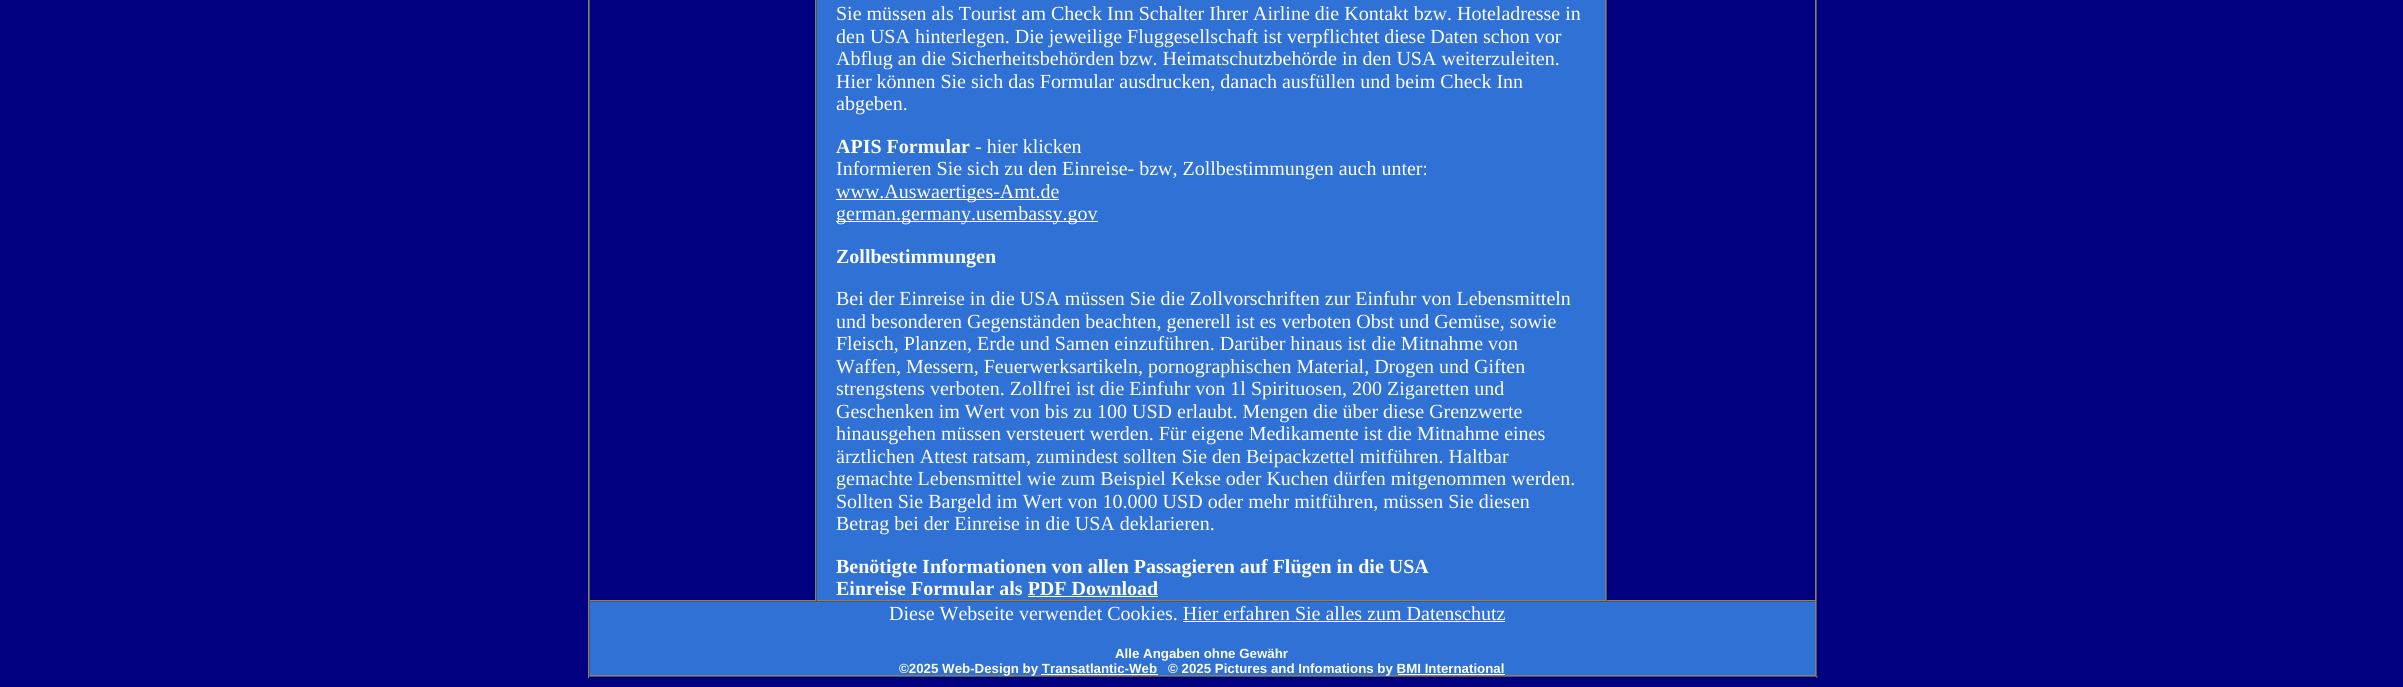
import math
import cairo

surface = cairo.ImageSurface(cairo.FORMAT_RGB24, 2403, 687)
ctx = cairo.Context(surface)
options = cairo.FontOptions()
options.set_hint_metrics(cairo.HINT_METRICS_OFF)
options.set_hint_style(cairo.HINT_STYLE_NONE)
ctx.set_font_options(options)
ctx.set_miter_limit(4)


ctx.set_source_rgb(0, 0, 0.502)
ctx.paint()
ctx.set_source_rgb(0.333, 0.333, 0.333)
ctx.rectangle(1816, 0, 1, 678)
ctx.fill()
ctx.rectangle(588, 676, 1230, 1)
ctx.fill()
ctx.set_source_rgb(0.502, 0.502, 0.502)
ctx.rectangle(588, 0, 1, 678)
ctx.fill()
ctx.rectangle(815, 0, 1, 601)
ctx.fill()
ctx.rectangle(589, 600, 227, 1)
ctx.fill()
ctx.set_source_rgb(0.333, 0.333, 0.333)
ctx.rectangle(589, 0, 1, 601)
ctx.fill()
ctx.set_source_rgb(0.184, 0.443, 0.835)
ctx.rectangle(817, 0, 788, 600)
ctx.fill()
ctx.set_source_rgb(0.502, 0.502, 0.502)
ctx.rectangle(1605, 0, 1, 601)
ctx.fill()
ctx.rectangle(816, 600, 790, 1)
ctx.fill()
ctx.set_source_rgb(0.333, 0.333, 0.333)
ctx.rectangle(816, 0, 1, 601)
ctx.fill()
ctx.select_font_face("Liberation Serif")
ctx.set_font_size(20)
ctx.set_source_rgb(1, 1, 1)
ctx.move_to(836, 20)
ctx.show_text("Sie müssen als Tourist am Check Inn Schalter Ihrer Airline die Kontakt bzw. Hoteladresse in")
ctx.move_to(836, 43)
ctx.show_text("den USA hinterlegen. Die jeweilige Fluggesellschaft ist verpflichtet diese Daten schon vor")
ctx.move_to(836, 65)
ctx.show_text("Abflug an die Sicherheitsbehörden bzw. Heimatschutzbehörde in den USA weiterzuleiten.")
ctx.move_to(836, 88)
ctx.show_text("Hier können Sie sich das Formular ausdrucken, danach ausfüllen und beim Check Inn")
ctx.move_to(836, 110)
ctx.show_text("abgeben.")
ctx.select_font_face("Liberation Serif", cairo.FONT_SLANT_NORMAL, cairo.FONT_WEIGHT_BOLD)
ctx.move_to(836, 153)
ctx.show_text("APIS Formular")
ctx.select_font_face("Liberation Serif")
ctx.move_to(975, 153)
ctx.show_text("- hier klicken")
ctx.move_to(836, 175)
ctx.show_text("Informieren Sie sich zu den Einreise- bzw, Zollbestimmungen auch unter:")
ctx.rectangle(836, 199, 223, 1)
ctx.fill()
ctx.move_to(836, 198)
ctx.show_text("www.Auswaertiges-Amt.de")
ctx.rectangle(836, 221, 262, 1)
ctx.fill()
ctx.move_to(836, 220)
ctx.show_text("german.germany.usembassy.gov")
ctx.select_font_face("Liberation Serif", cairo.FONT_SLANT_NORMAL, cairo.FONT_WEIGHT_BOLD)
ctx.move_to(836, 263)
ctx.show_text("Zollbestimmungen")
ctx.select_font_face("Liberation Serif")
ctx.move_to(836, 305)
ctx.show_text("Bei der Einreise in die USA müssen Sie die Zollvorschriften zur Einfuhr von Lebensmitteln")
ctx.move_to(836, 328)
ctx.show_text("und besonderen Gegenständen beachten, generell ist es verboten Obst und Gemüse, sowie")
ctx.move_to(836, 350)
ctx.show_text("Fleisch, Planzen, Erde und Samen einzuführen. Darüber hinaus ist die Mitnahme von")
ctx.move_to(836, 373)
ctx.show_text("Waffen, Messern, Feuerwerksartikeln, pornographischen Material, Drogen und Giften")
ctx.move_to(836, 395)
ctx.show_text("strengstens verboten. Zollfrei ist die Einfuhr von 1l Spirituosen, 200 Zigaretten und")
ctx.move_to(836, 418)
ctx.show_text("Geschenken im Wert von bis zu 100 USD erlaubt. Mengen die über diese Grenzwerte")
ctx.move_to(836, 440)
ctx.show_text("hinausgehen müssen versteuert werden. Für eigene Medikamente ist die Mitnahme eines")
ctx.move_to(836, 463)
ctx.show_text("ärztlichen Attest ratsam, zumindest sollten Sie den Beipackzettel mitführen. Haltbar")
ctx.move_to(836, 485)
ctx.show_text("gemachte Lebensmittel wie zum Beispiel Kekse oder Kuchen dürfen mitgenommen werden.")
ctx.move_to(836, 508)
ctx.show_text("Sollten Sie Bargeld im Wert von 10.000 USD oder mehr mitführen, müssen Sie diesen")
ctx.move_to(836, 530)
ctx.show_text("Betrag bei der Einreise in die USA deklarieren.")
ctx.select_font_face("Liberation Serif", cairo.FONT_SLANT_NORMAL, cairo.FONT_WEIGHT_BOLD)
ctx.move_to(836, 573)
ctx.show_text("Benötigte Informationen von allen Passagieren auf Flügen in die USA")
ctx.move_to(836, 595)
ctx.show_text("Einreise Formular als PDF Download")
ctx.rectangle(1028, 596, 130, 1)
ctx.fill()
ctx.set_source_rgb(0.502, 0.502, 0.502)
ctx.rectangle(1815, 0, 1, 601)
ctx.fill()
ctx.rectangle(1606, 600, 210, 1)
ctx.fill()
ctx.set_source_rgb(0.333, 0.333, 0.333)
ctx.rectangle(1606, 0, 1, 601)
ctx.fill()
ctx.set_source_rgb(0.184, 0.443, 0.835)
ctx.rectangle(590, 602, 1225, 73)
ctx.fill()
ctx.set_source_rgb(0.333, 0.333, 0.333)
ctx.rectangle(589, 601, 1227, 1)
ctx.fill()
ctx.set_source_rgb(0.502, 0.502, 0.502)
ctx.rectangle(1815, 601, 1, 75)
ctx.fill()
ctx.rectangle(589, 675, 1227, 1)
ctx.fill()
ctx.set_source_rgb(0.333, 0.333, 0.333)
ctx.rectangle(589, 601, 1, 75)
ctx.fill()
ctx.select_font_face("Liberation Serif")
ctx.set_source_rgb(1, 1, 1)
ctx.move_to(889, 620)
ctx.show_text("Diese Webseite verwendet Cookies. Hier erfahren Sie alles zum Datenschutz")
ctx.rectangle(1183, 621, 322, 1)
ctx.fill()
ctx.select_font_face("Liberation Sans", cairo.FONT_SLANT_NORMAL, cairo.FONT_WEIGHT_BOLD)
ctx.set_font_size(13.3)
ctx.move_to(1115, 658)
ctx.show_text("Alle Angaben ohne Gewähr")
ctx.move_to(899, 673)
ctx.show_text("©2025 Web-Design by Transatlantic-Web")
ctx.rectangle(1041, 674, 117, 1)
ctx.fill()
ctx.move_to(1168, 673)
ctx.show_text("© 2025 Pictures and Infomations by BMI International")
ctx.rectangle(1398, 674, 107, 1)
ctx.fill()
surface.write_to_png("page.png")
